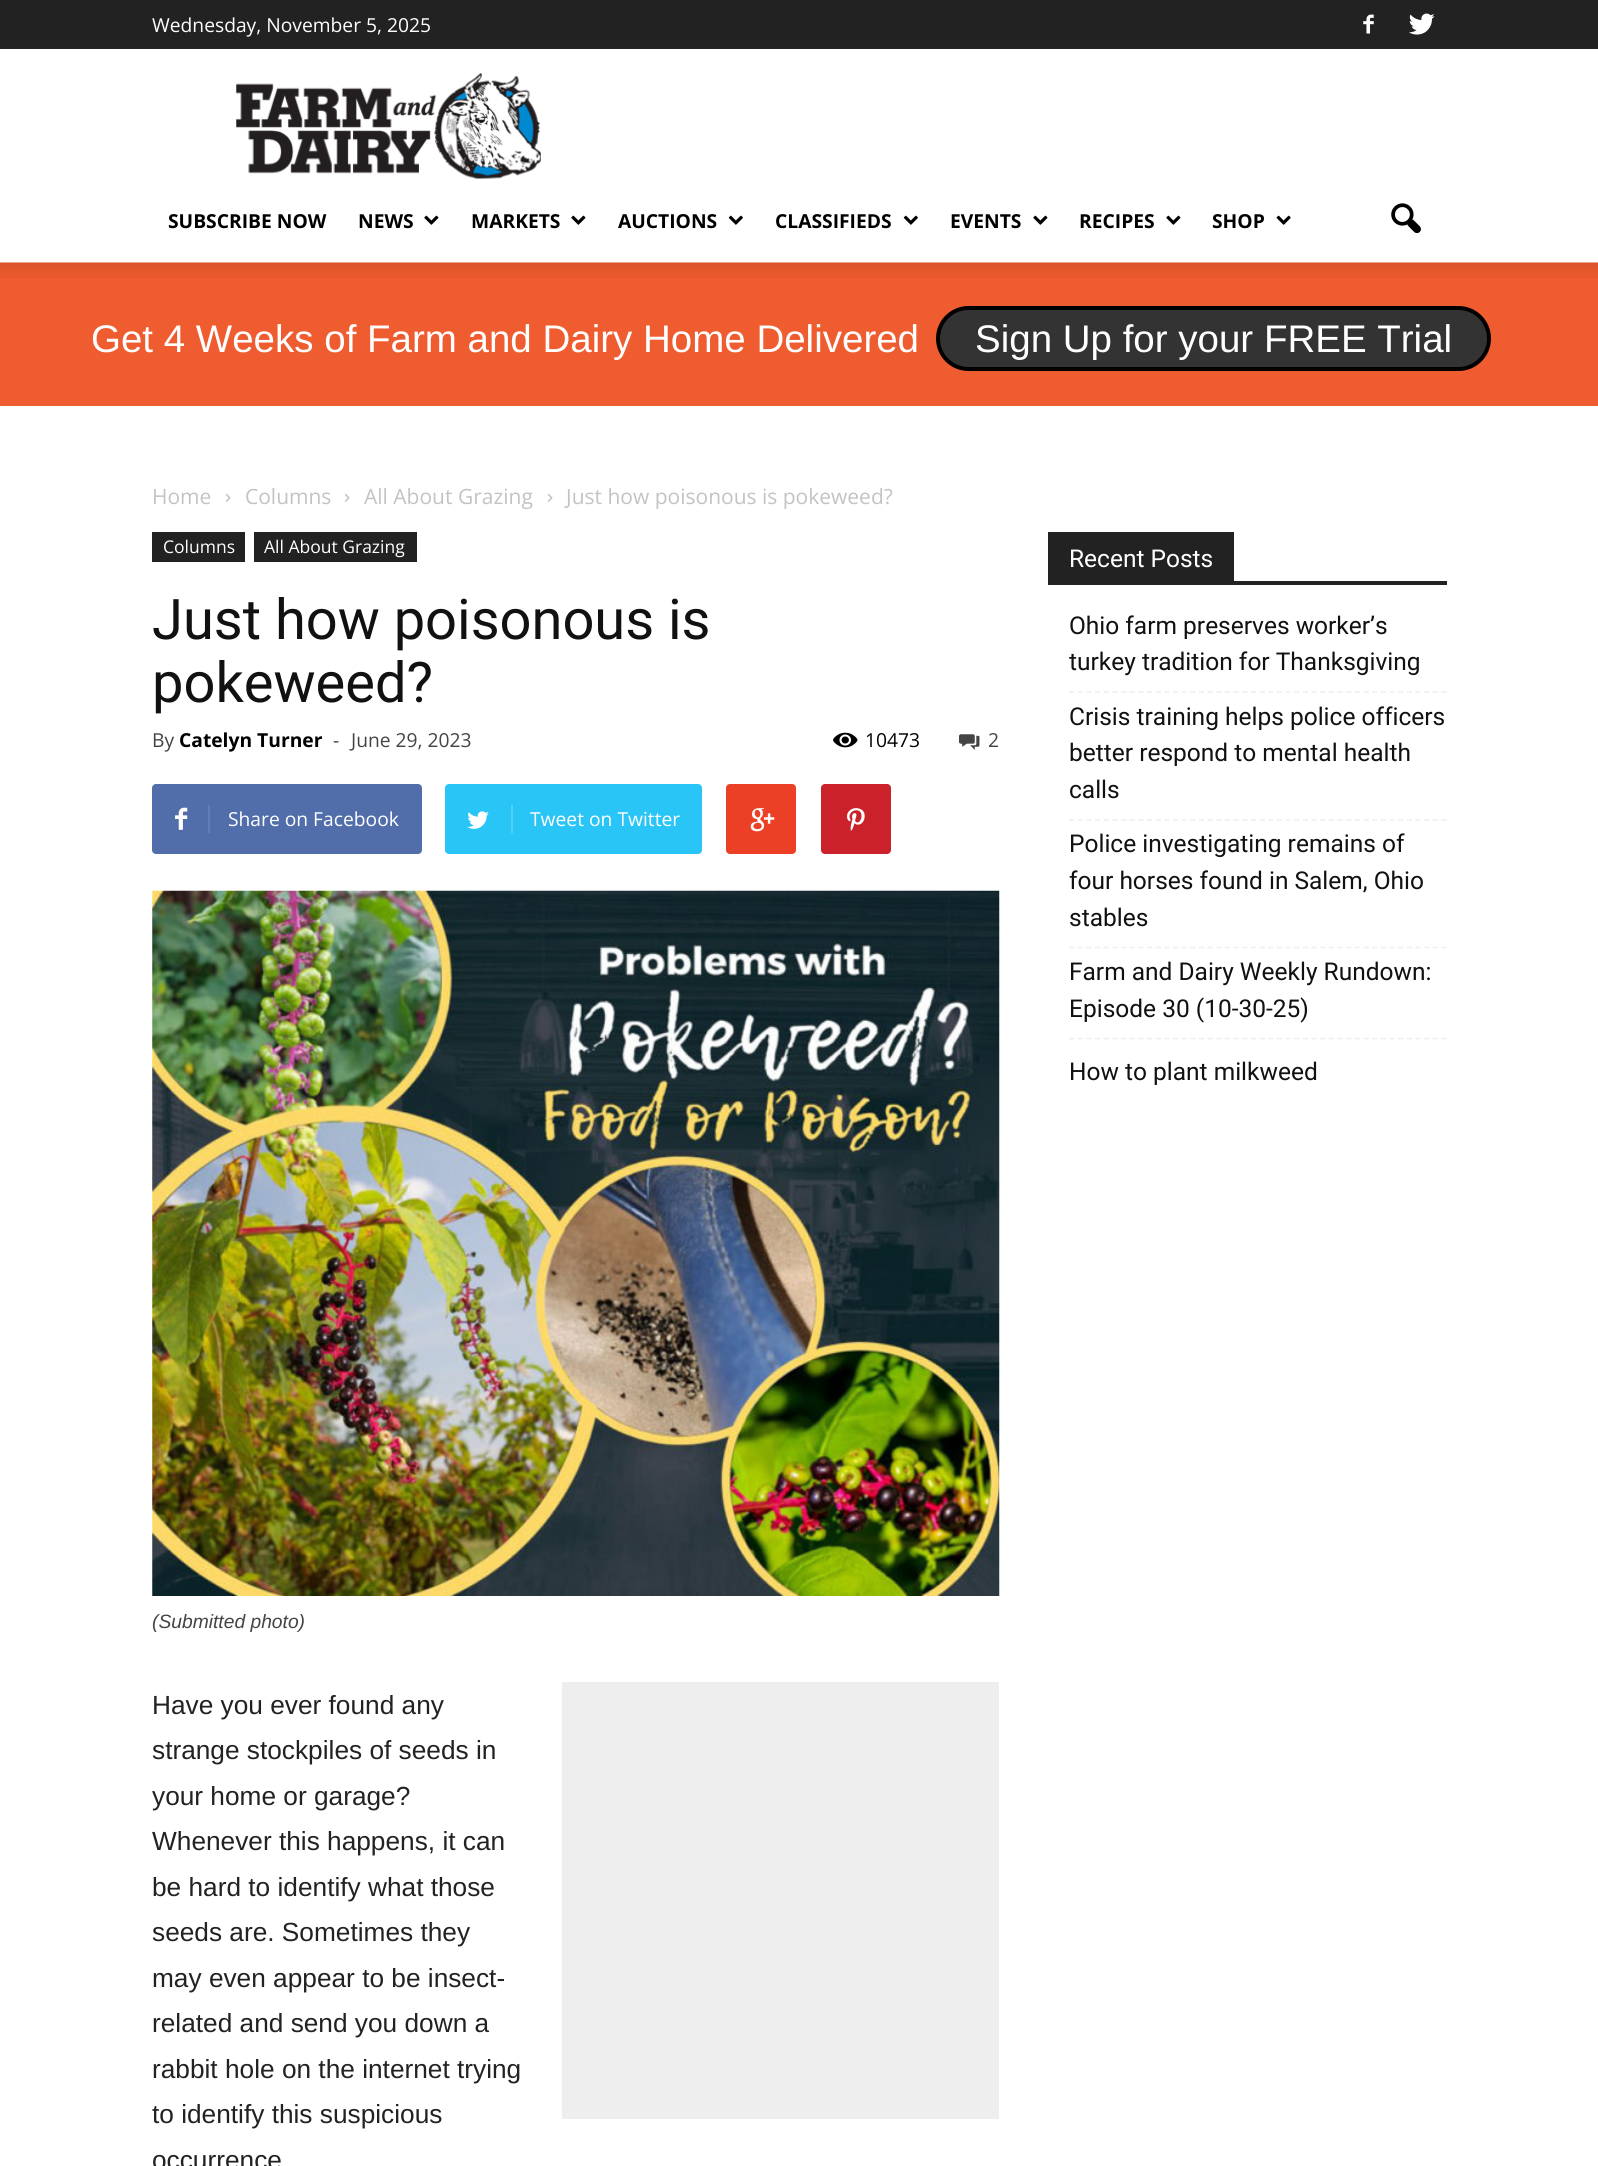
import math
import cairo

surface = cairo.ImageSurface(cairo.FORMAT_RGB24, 1598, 2166)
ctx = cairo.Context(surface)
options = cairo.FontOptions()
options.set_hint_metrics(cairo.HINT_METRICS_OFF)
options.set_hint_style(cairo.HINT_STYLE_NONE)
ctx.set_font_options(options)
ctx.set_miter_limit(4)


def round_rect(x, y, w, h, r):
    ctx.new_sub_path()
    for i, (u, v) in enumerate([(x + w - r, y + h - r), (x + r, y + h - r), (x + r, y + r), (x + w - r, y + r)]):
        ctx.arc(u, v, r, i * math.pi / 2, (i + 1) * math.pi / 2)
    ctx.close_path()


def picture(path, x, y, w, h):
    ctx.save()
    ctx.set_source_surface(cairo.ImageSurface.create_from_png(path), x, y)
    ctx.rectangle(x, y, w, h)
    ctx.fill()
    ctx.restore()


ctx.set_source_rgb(1, 1, 1)
ctx.paint()
ctx.set_source_rgb(0.133, 0.133, 0.133)
ctx.rectangle(0, 0, 1598, 49)
ctx.fill()
ctx.select_font_face("Open Sans")
ctx.set_font_size(19.25)
ctx.set_source_rgb(1, 1, 1)
ctx.move_to(152, 32)
ctx.show_text("Wednesday, November 5, 2025")
picture("img1.png", 1363, 14, 11, 20)
picture("img2.png", 1409, 13, 26, 22)
picture("img3.png", 236, 73, 305, 106)
ctx.select_font_face("Open Sans", cairo.FONT_SLANT_NORMAL, cairo.FONT_WEIGHT_BOLD)
ctx.set_source_rgb(0, 0, 0)
ctx.move_to(168, 228)
ctx.show_text("SUBSCRIBE NOW")
ctx.move_to(358, 228)
ctx.show_text("NEWS")
picture("img4.png", 424, 215, 15, 10)
ctx.move_to(471, 228)
ctx.show_text("MARKETS")
picture("img4.png", 571, 215, 15, 10)
ctx.move_to(618, 228)
ctx.show_text("AUCTIONS")
picture("img5.png", 728, 215, 15, 10)
ctx.move_to(775, 228)
ctx.show_text("CLASSIFIEDS")
picture("img5.png", 903, 215, 15, 10)
ctx.move_to(950, 228)
ctx.show_text("EVENTS")
picture("img4.png", 1033, 215, 15, 10)
ctx.move_to(1079, 228)
ctx.show_text("RECIPES")
picture("img4.png", 1166, 215, 15, 10)
ctx.move_to(1212, 228)
ctx.show_text("SHOP")
picture("img6.png", 1276, 215, 15, 10)
picture("img7.png", 1391, 203, 30, 31)
picture("img8.png", 0, 262, 1598, 16)
ctx.set_source_rgb(0.937, 0.361, 0.184)
ctx.rectangle(0, 278, 1598, 128)
ctx.fill()
ctx.select_font_face("Liberation Sans")
ctx.set_font_size(38.5)
ctx.set_source_rgb(1, 1, 1)
ctx.move_to(91, 352)
ctx.show_text("Get 4 Weeks of Farm and Dairy Home Delivered")
ctx.set_source_rgb(0.2, 0.2, 0.2)
round_rect(938, 308, 551, 61, 30.5)
ctx.fill_preserve()
ctx.set_source_rgb(0, 0, 0)
ctx.set_line_width(4)
ctx.stroke()
ctx.set_source_rgb(1, 1, 1)
ctx.move_to(975, 352)
ctx.show_text("Sign Up for your FREE Trial")
ctx.select_font_face("Open Sans")
ctx.set_font_size(21)
ctx.set_source_rgb(0.765, 0.765, 0.765)
ctx.move_to(152, 504)
ctx.show_text("Home")
picture("img9.png", 225, 493, 6, 9)
ctx.move_to(245, 504)
ctx.show_text("Columns")
picture("img9.png", 344, 493, 6, 9)
ctx.move_to(364, 504)
ctx.show_text("All About Grazing")
picture("img9.png", 547, 493, 6, 9)
ctx.move_to(566, 504)
ctx.show_text("Just how poisonous is pokeweed?")
ctx.set_source_rgb(0.133, 0.133, 0.133)
ctx.rectangle(152, 532, 93, 30)
ctx.fill()
ctx.set_font_size(17.5)
ctx.set_source_rgb(1, 1, 1)
ctx.move_to(163, 553)
ctx.show_text("Columns")
ctx.set_source_rgb(0.133, 0.133, 0.133)
ctx.rectangle(254, 532, 163, 30)
ctx.fill()
ctx.set_source_rgb(1, 1, 1)
ctx.move_to(264, 553)
ctx.show_text("All About Grazing")
ctx.select_font_face("Roboto")
ctx.set_font_size(56)
ctx.set_source_rgb(0.067, 0.067, 0.067)
ctx.move_to(152, 639)
ctx.show_text("Just how poisonous is")
ctx.move_to(152, 702)
ctx.show_text("pokeweed?")
ctx.select_font_face("Open Sans")
ctx.set_font_size(19.25)
ctx.set_source_rgb(0.267, 0.267, 0.267)
ctx.move_to(152, 747)
ctx.show_text("By")
ctx.select_font_face("Open Sans", cairo.FONT_SLANT_NORMAL, cairo.FONT_WEIGHT_BOLD)
ctx.set_source_rgb(0, 0, 0)
ctx.move_to(179, 747)
ctx.show_text("Catelyn Turner")
ctx.select_font_face("Open Sans")
ctx.set_source_rgb(0.267, 0.267, 0.267)
ctx.move_to(333, 747)
ctx.show_text("-")
ctx.move_to(351, 747)
ctx.show_text("June 29, 2023")
picture("img10.png", 833, 732, 25, 16)
ctx.set_source_rgb(0, 0, 0)
ctx.move_to(865, 747)
ctx.show_text("10473")
picture("img11.png", 959, 734, 21, 16)
ctx.set_source_rgb(0.267, 0.267, 0.267)
ctx.move_to(988, 747)
ctx.show_text("2")
ctx.set_source_rgb(0.318, 0.431, 0.671)
round_rect(152, 784, 270, 70, 4)
ctx.fill()
picture("img12.png", 175, 807, 13, 23)
ctx.set_source_rgb(0.384, 0.49, 0.702)
ctx.rectangle(208, 805, 2, 28)
ctx.fill()
ctx.set_source_rgb(1, 1, 1)
ctx.move_to(228, 826)
ctx.show_text("Share on Facebook")
ctx.set_source_rgb(0.161, 0.773, 0.965)
round_rect(445, 784, 257, 70, 4)
ctx.fill()
picture("img13.png", 467, 811, 22, 18)
ctx.set_source_rgb(0.329, 0.82, 0.973)
ctx.rectangle(511, 805, 2, 28)
ctx.fill()
ctx.set_source_rgb(1, 1, 1)
ctx.move_to(530, 826)
ctx.show_text("Tweet on Twitter")
ctx.set_source_rgb(0.922, 0.251, 0.149)
round_rect(726, 784, 70, 70, 4)
ctx.fill()
picture("img14.png", 750, 808, 25, 24)
ctx.set_source_rgb(0.792, 0.129, 0.165)
round_rect(821, 784, 70, 70, 4)
ctx.fill()
picture("img15.png", 847, 808, 18, 23)
picture("img16.png", 152, 890, 848, 706)
ctx.select_font_face("Liberation Sans", cairo.FONT_SLANT_ITALIC)
ctx.set_source_rgb(0.267, 0.267, 0.267)
ctx.move_to(152, 1628)
ctx.show_text("(Submitted photo)")
ctx.select_font_face("Liberation Sans")
ctx.set_font_size(26.25)
ctx.set_source_rgb(0.133, 0.133, 0.133)
ctx.move_to(152, 1714)
ctx.show_text("Have you ever found any")
ctx.move_to(152, 1759)
ctx.show_text("strange stockpiles of seeds in")
ctx.move_to(152, 1805)
ctx.show_text("your home or garage?")
ctx.move_to(152, 1850)
ctx.show_text("Whenever this happens, it can")
ctx.move_to(152, 1896)
ctx.show_text("be hard to identify what those")
ctx.move_to(152, 1941)
ctx.show_text("seeds are. Sometimes they")
ctx.move_to(152, 1987)
ctx.show_text("may even appear to be insect-")
ctx.move_to(152, 2032)
ctx.show_text("related and send you down a")
ctx.move_to(152, 2078)
ctx.show_text("rabbit hole on the internet trying")
ctx.move_to(152, 2123)
ctx.show_text("to identify this suspicious")
ctx.move_to(152, 2169)
ctx.show_text("occurrence")
ctx.set_source_rgb(0.933, 0.933, 0.933)
ctx.rectangle(562, 1682, 437, 437)
ctx.fill()
ctx.set_source_rgb(0.133, 0.133, 0.133)
ctx.rectangle(1048, 581, 399, 4)
ctx.fill()
ctx.rectangle(1048, 532, 186, 49)
ctx.fill()
ctx.select_font_face("Roboto")
ctx.set_font_size(24.5)
ctx.set_source_rgb(1, 1, 1)
ctx.move_to(1069, 567)
ctx.show_text("Recent Posts")
ctx.new_path()
ctx.move_to(1069, 692)
ctx.line_to(1447, 692)
ctx.set_source_rgb(0.945, 0.945, 0.945)
ctx.set_line_width(1.8)
ctx.set_dash([5.25, 3.41])
ctx.stroke()
ctx.set_source_rgb(0.067, 0.067, 0.067)
ctx.move_to(1069, 634)
ctx.show_text("Ohio farm preserves worker’s")
ctx.move_to(1069, 670)
ctx.show_text("turkey tradition for Thanksgiving")
ctx.new_path()
ctx.move_to(1069, 820)
ctx.line_to(1447, 820)
ctx.set_source_rgb(0.945, 0.945, 0.945)
ctx.stroke()
ctx.set_source_rgb(0.067, 0.067, 0.067)
ctx.move_to(1069, 725)
ctx.show_text("Crisis training helps police officers")
ctx.move_to(1069, 761)
ctx.show_text("better respond to mental health")
ctx.move_to(1069, 798)
ctx.show_text("calls")
ctx.new_path()
ctx.move_to(1069, 947.5)
ctx.line_to(1447, 947.5)
ctx.set_source_rgb(0.945, 0.945, 0.945)
ctx.stroke()
ctx.set_source_rgb(0.067, 0.067, 0.067)
ctx.move_to(1069, 852)
ctx.show_text("Police investigating remains of")
ctx.move_to(1069, 889)
ctx.show_text("four horses found in Salem, Ohio")
ctx.move_to(1069, 926)
ctx.show_text("stables")
ctx.new_path()
ctx.move_to(1069, 1038.5)
ctx.line_to(1447, 1038.5)
ctx.set_source_rgb(0.945, 0.945, 0.945)
ctx.stroke()
ctx.set_source_rgb(0.067, 0.067, 0.067)
ctx.move_to(1069, 980)
ctx.show_text("Farm and Dairy Weekly Rundown:")
ctx.move_to(1069, 1017)
ctx.show_text("Episode 30 (10-30-25)")
ctx.move_to(1069, 1080)
ctx.show_text("How to plant milkweed")
surface.write_to_png("page.png")
